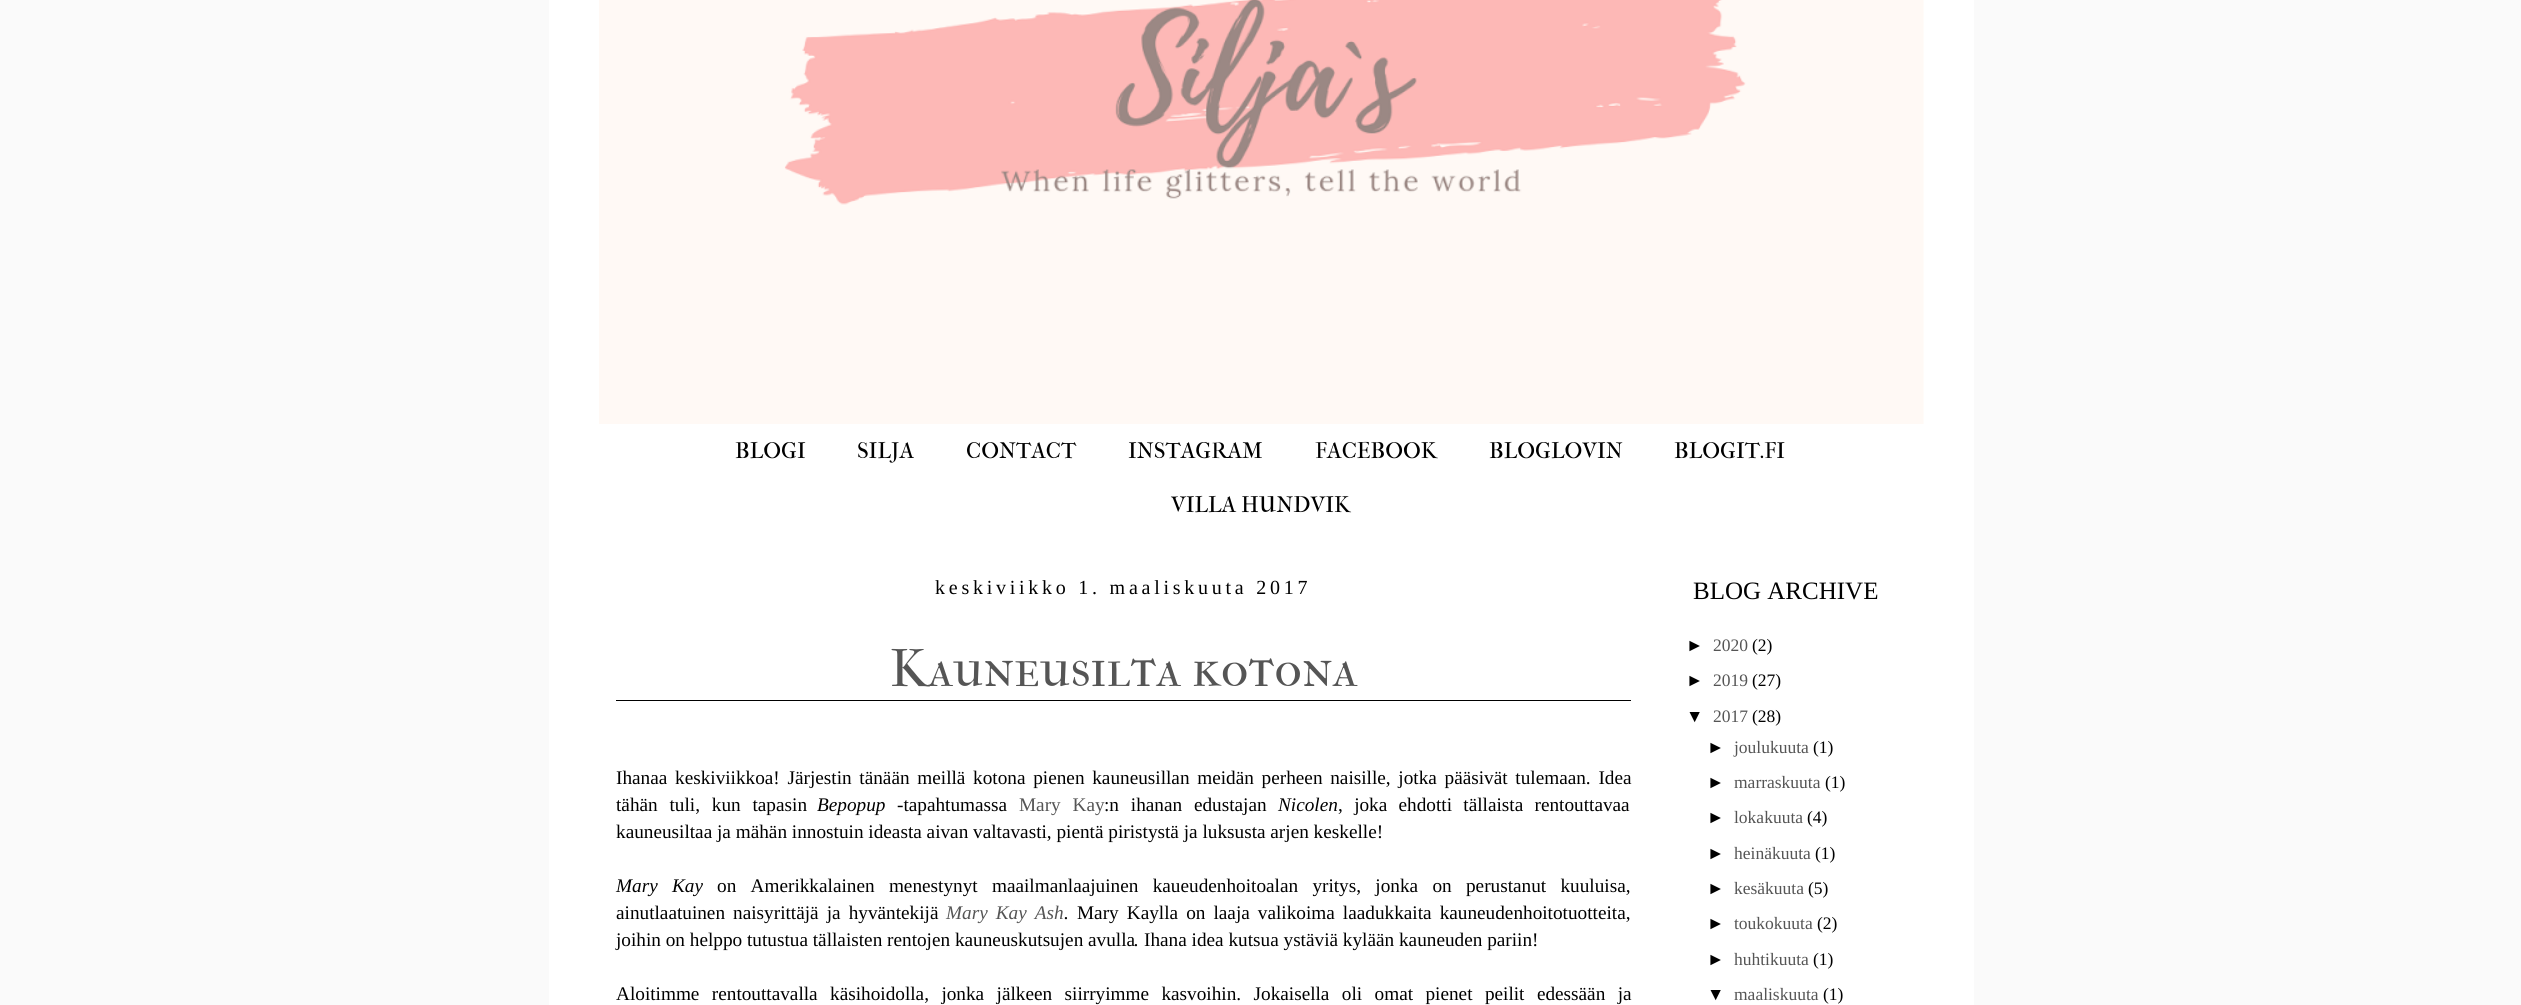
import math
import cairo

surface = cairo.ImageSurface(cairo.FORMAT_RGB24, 2521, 1005)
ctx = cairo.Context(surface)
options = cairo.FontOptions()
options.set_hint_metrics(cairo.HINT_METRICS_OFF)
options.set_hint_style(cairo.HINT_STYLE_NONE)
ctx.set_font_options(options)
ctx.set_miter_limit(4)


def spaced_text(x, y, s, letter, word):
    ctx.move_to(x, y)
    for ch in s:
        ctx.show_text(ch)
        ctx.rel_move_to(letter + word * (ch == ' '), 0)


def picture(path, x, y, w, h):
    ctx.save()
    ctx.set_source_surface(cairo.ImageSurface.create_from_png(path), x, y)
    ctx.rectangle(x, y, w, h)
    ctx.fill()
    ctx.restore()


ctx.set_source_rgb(0.98, 0.98, 0.98)
ctx.paint()
ctx.set_source_rgb(1, 1, 1)
ctx.rectangle(549, 0, 1425, 1005)
ctx.fill()
picture("img1.png", 599, 0, 1325, 424)
ctx.select_font_face("IM FELL French Canon SC")
ctx.set_font_size(22.5)
ctx.set_source_rgb(0, 0, 0)
ctx.move_to(735, 458)
ctx.show_text("BLOGI")
ctx.move_to(857, 458)
ctx.show_text("SILJA")
ctx.move_to(966, 458)
ctx.show_text("CONTACT")
ctx.move_to(1128, 458)
ctx.show_text("INSTAGRAM")
ctx.move_to(1315, 458)
ctx.show_text("FACEBOOK")
ctx.move_to(1489, 458)
ctx.show_text("BLOGLOVIN")
ctx.move_to(1674, 458)
ctx.show_text("BLOGIT.FI")
ctx.move_to(1171, 512)
ctx.show_text("VILLA HUNDVIK")
ctx.select_font_face("Liberation Serif")
ctx.set_font_size(20)
spaced_text(935, 594, "keskiviikko 1. maaliskuuta 2017", 3.75, 0)
ctx.rectangle(616, 700, 1015, 1)
ctx.fill()
ctx.select_font_face("IM FELL French Canon SC")
ctx.set_font_size(52.5)
ctx.set_source_rgb(0.333, 0.333, 0.333)
ctx.move_to(890, 686)
ctx.show_text("Kauneusilta kotona")
ctx.select_font_face("Liberation Serif")
ctx.set_font_size(19.25)
ctx.set_source_rgb(0, 0, 0)
spaced_text(616, 784, "Ihanaa keskiviikkoa! Järjestin tänään meillä kotona pienen kauneusillan meidän perheen naisille, jotka pääsivät tulemaan. Idea", 0, 2.9)
spaced_text(616, 811, "tähän tuli, kun tapasin", 0, 7)
ctx.select_font_face("Liberation Serif", cairo.FONT_SLANT_ITALIC)
ctx.move_to(817, 811)
ctx.show_text("Bepopup")
ctx.select_font_face("Liberation Serif")
ctx.move_to(897, 811)
ctx.show_text("-tapahtumassa")
ctx.set_source_rgb(0.333, 0.333, 0.333)
spaced_text(1019, 811, "Mary Kay", 0, 7)
ctx.set_source_rgb(0, 0, 0)
spaced_text(1104, 811, ":n ihanan edustajan", 0, 7)
ctx.select_font_face("Liberation Serif", cairo.FONT_SLANT_ITALIC)
ctx.move_to(1278, 811)
ctx.show_text("Nicolen")
ctx.select_font_face("Liberation Serif")
spaced_text(1338, 811, ", joka ehdotti tällaista rentouttavaa", 0, 6.5)
ctx.move_to(616, 838)
ctx.show_text("kauneusiltaa ja mähän innostuin ideasta aivan valtavasti, pientä piristystä ja luksusta arjen keskelle!")
ctx.select_font_face("Liberation Serif", cairo.FONT_SLANT_ITALIC)
spaced_text(616, 892, "Mary Kay", 0, 9.5)
ctx.select_font_face("Liberation Serif")
spaced_text(717, 892, "on Amerikkalainen menestynyt maailmanlaajuinen kaueudenhoitoalan yritys, jonka on perustanut kuuluisa,", 0, 9.5)
spaced_text(616, 919, "ainutlaatuinen naisyrittäjä ja hyväntekijä", 0, 3.25)
ctx.select_font_face("Liberation Serif", cairo.FONT_SLANT_ITALIC)
ctx.set_source_rgb(0.333, 0.333, 0.333)
spaced_text(946, 919, "Mary Kay Ash", 0, 3.25)
ctx.set_source_rgb(0, 0, 0)
ctx.move_to(1064, 919)
ctx.show_text(".")
ctx.select_font_face("Liberation Serif")
spaced_text(1077, 919, "Mary Kaylla on laaja valikoima laadukkaita kauneudenhoitotuotteita,", 0, 3.25)
ctx.move_to(616, 946)
ctx.show_text("joihin on helppo tutustua tällaisten rentojen kauneuskutsujen avulla")
ctx.select_font_face("Liberation Serif", cairo.FONT_SLANT_ITALIC)
ctx.move_to(1134, 946)
ctx.show_text(".")
ctx.select_font_face("Liberation Serif")
ctx.move_to(1144, 946)
ctx.show_text("Ihana idea kutsua ystäviä kylään kauneuden pariin!")
spaced_text(616, 1000, "Aloitimme rentouttavalla käsihoidolla, jonka jälkeen siirryimme kasvoihin. Jokaisella oli omat pienet peilit edessään ja", 0, 7.6)
ctx.set_font_size(25)
ctx.move_to(1693, 599)
ctx.show_text("BLOG ARCHIVE")
ctx.select_font_face("Liberation Sans")
ctx.set_font_size(17.5)
ctx.move_to(1686, 651)
ctx.show_text("►")
ctx.select_font_face("Liberation Serif")
ctx.set_source_rgb(0.333, 0.333, 0.333)
ctx.move_to(1713, 651)
ctx.show_text("2020")
ctx.set_source_rgb(0, 0, 0)
ctx.move_to(1752, 651)
ctx.show_text("(2)")
ctx.select_font_face("Liberation Sans")
ctx.move_to(1686, 686)
ctx.show_text("►")
ctx.select_font_face("Liberation Serif")
ctx.set_source_rgb(0.333, 0.333, 0.333)
ctx.move_to(1713, 686)
ctx.show_text("2019")
ctx.set_source_rgb(0, 0, 0)
ctx.move_to(1752, 686)
ctx.show_text("(27)")
ctx.select_font_face("Liberation Sans")
ctx.move_to(1686, 722)
ctx.show_text("▼")
ctx.select_font_face("Liberation Serif")
ctx.set_source_rgb(0.333, 0.333, 0.333)
ctx.move_to(1713, 722)
ctx.show_text("2017")
ctx.set_source_rgb(0, 0, 0)
ctx.move_to(1752, 722)
ctx.show_text("(28)")
ctx.select_font_face("Liberation Sans")
ctx.move_to(1707, 753)
ctx.show_text("►")
ctx.select_font_face("Liberation Serif")
ctx.set_source_rgb(0.333, 0.333, 0.333)
ctx.move_to(1734, 753)
ctx.show_text("joulukuuta")
ctx.set_source_rgb(0, 0, 0)
ctx.move_to(1813, 753)
ctx.show_text("(1)")
ctx.select_font_face("Liberation Sans")
ctx.move_to(1707, 788)
ctx.show_text("►")
ctx.select_font_face("Liberation Serif")
ctx.set_source_rgb(0.333, 0.333, 0.333)
ctx.move_to(1734, 788)
ctx.show_text("marraskuuta")
ctx.set_source_rgb(0, 0, 0)
ctx.move_to(1825, 788)
ctx.show_text("(1)")
ctx.select_font_face("Liberation Sans")
ctx.move_to(1707, 823)
ctx.show_text("►")
ctx.select_font_face("Liberation Serif")
ctx.set_source_rgb(0.333, 0.333, 0.333)
ctx.move_to(1734, 823)
ctx.show_text("lokakuuta")
ctx.set_source_rgb(0, 0, 0)
ctx.move_to(1807, 823)
ctx.show_text("(4)")
ctx.select_font_face("Liberation Sans")
ctx.move_to(1707, 859)
ctx.show_text("►")
ctx.select_font_face("Liberation Serif")
ctx.set_source_rgb(0.333, 0.333, 0.333)
ctx.move_to(1734, 859)
ctx.show_text("heinäkuuta")
ctx.set_source_rgb(0, 0, 0)
ctx.move_to(1815, 859)
ctx.show_text("(1)")
ctx.select_font_face("Liberation Sans")
ctx.move_to(1707, 894)
ctx.show_text("►")
ctx.select_font_face("Liberation Serif")
ctx.set_source_rgb(0.333, 0.333, 0.333)
ctx.move_to(1734, 894)
ctx.show_text("kesäkuuta")
ctx.set_source_rgb(0, 0, 0)
ctx.move_to(1808, 894)
ctx.show_text("(5)")
ctx.select_font_face("Liberation Sans")
ctx.move_to(1707, 929)
ctx.show_text("►")
ctx.select_font_face("Liberation Serif")
ctx.set_source_rgb(0.333, 0.333, 0.333)
ctx.move_to(1734, 929)
ctx.show_text("toukokuuta")
ctx.set_source_rgb(0, 0, 0)
ctx.move_to(1817, 929)
ctx.show_text("(2)")
ctx.select_font_face("Liberation Sans")
ctx.move_to(1707, 965)
ctx.show_text("►")
ctx.select_font_face("Liberation Serif")
ctx.set_source_rgb(0.333, 0.333, 0.333)
ctx.move_to(1734, 965)
ctx.show_text("huhtikuuta")
ctx.set_source_rgb(0, 0, 0)
ctx.move_to(1813, 965)
ctx.show_text("(1)")
ctx.select_font_face("Liberation Sans")
ctx.move_to(1707, 1000)
ctx.show_text("▼")
ctx.select_font_face("Liberation Serif")
ctx.set_source_rgb(0.333, 0.333, 0.333)
ctx.move_to(1734, 1000)
ctx.show_text("maaliskuuta")
ctx.set_source_rgb(0, 0, 0)
ctx.move_to(1823, 1000)
ctx.show_text("(1)")
surface.write_to_png("page.png")
